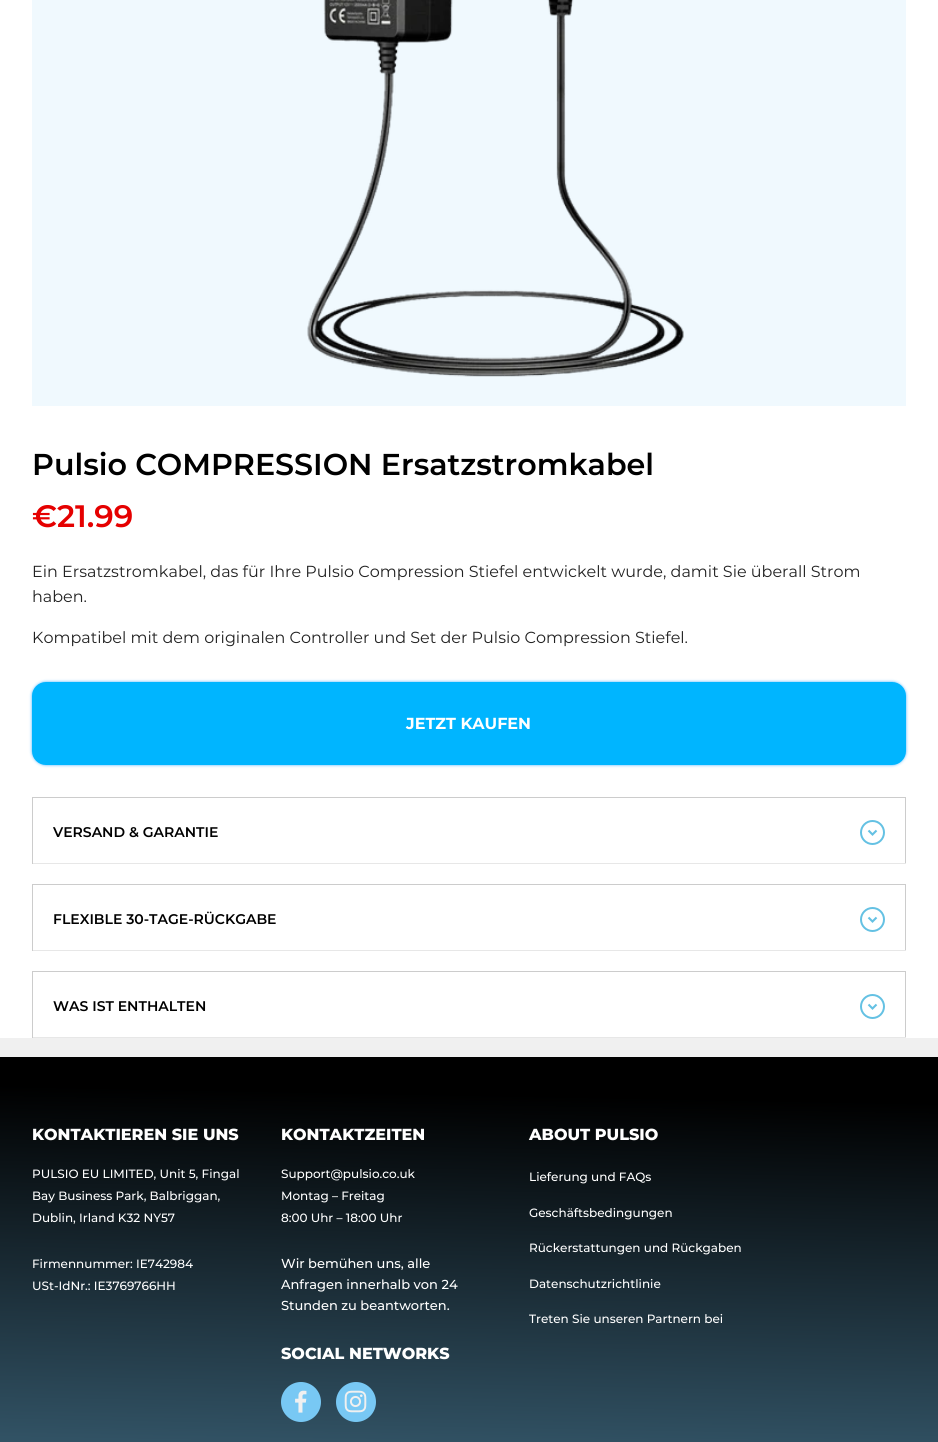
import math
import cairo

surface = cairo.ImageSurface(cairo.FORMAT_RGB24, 938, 1442)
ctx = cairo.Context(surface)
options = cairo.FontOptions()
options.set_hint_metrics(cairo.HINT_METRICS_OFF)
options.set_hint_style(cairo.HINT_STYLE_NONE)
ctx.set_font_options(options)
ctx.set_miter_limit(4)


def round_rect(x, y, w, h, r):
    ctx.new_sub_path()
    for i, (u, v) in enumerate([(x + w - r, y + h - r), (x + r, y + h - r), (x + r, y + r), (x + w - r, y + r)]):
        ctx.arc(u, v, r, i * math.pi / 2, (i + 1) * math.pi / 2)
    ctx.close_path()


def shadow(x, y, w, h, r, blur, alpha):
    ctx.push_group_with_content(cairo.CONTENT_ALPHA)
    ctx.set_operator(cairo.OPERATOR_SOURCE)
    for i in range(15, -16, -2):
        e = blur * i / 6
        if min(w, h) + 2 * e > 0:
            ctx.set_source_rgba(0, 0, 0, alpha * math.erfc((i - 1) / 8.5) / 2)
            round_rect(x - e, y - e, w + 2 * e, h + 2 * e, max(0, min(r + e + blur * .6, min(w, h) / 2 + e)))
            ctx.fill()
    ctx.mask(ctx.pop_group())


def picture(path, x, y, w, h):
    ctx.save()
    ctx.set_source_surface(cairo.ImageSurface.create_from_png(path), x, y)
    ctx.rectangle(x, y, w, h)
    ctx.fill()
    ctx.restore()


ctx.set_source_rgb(0.941, 0.941, 0.941)
ctx.paint()
ctx.set_source_rgb(1, 1, 1)
ctx.rectangle(0, 0, 938, 1038)
ctx.fill()
ctx.set_source_rgb(0.941, 0.976, 0.996)
ctx.rectangle(32, 0, 874, 406)
ctx.fill()
picture("img1.png", 307, 0, 377, 377)
ctx.select_font_face("Montserrat SemiBold")
ctx.set_font_size(30.15)
ctx.set_source_rgb(0, 0, 0)
ctx.move_to(32, 475)
ctx.show_text("Pulsio COMPRESSION Ersatzstromkabel")
ctx.set_font_size(31)
ctx.set_source_rgb(0.898, 0, 0)
ctx.move_to(32, 527)
ctx.show_text("€21.99")
ctx.select_font_face("Montserrat")
ctx.set_font_size(16)
ctx.set_source_rgb(0.133, 0.133, 0.133)
ctx.move_to(32, 577)
ctx.show_text("Ein Ersatzstromkabel, das für Ihre Pulsio Compression Stiefel entwickelt wurde, damit Sie überall Strom")
ctx.move_to(32, 602)
ctx.show_text("haben.")
ctx.move_to(32, 643)
ctx.show_text("Kompatibel mit dem originalen Controller und Set der Pulsio Compression Stiefel.")
ctx.set_source_rgb(0, 0.58, 1)
shadow(32, 682, 874, 83, 14, 1.5, 0.71)
ctx.set_source_rgb(0, 0.71, 1)
round_rect(32, 682, 874, 83, 14)
ctx.fill()
ctx.select_font_face("Montserrat", cairo.FONT_SLANT_NORMAL, cairo.FONT_WEIGHT_BOLD)
ctx.set_source_rgb(1, 1, 1)
ctx.move_to(406, 729)
ctx.show_text("JETZT KAUFEN")
ctx.set_source_rgb(0.8, 0.8, 0.8)
ctx.rectangle(32, 797, 874, 1)
ctx.fill()
ctx.rectangle(905, 797, 1, 67)
ctx.fill()
ctx.set_source_rgb(0.906, 0.906, 0.906)
ctx.rectangle(32, 863, 874, 1)
ctx.fill()
ctx.set_source_rgb(0.8, 0.8, 0.8)
ctx.rectangle(32, 797, 1, 67)
ctx.fill()
ctx.select_font_face("Montserrat SemiBold")
ctx.set_font_size(14)
ctx.set_source_rgb(0, 0, 0)
ctx.move_to(53, 837)
ctx.show_text("VERSAND & GARANTIE")
ctx.new_path()
ctx.arc(872.5, 832.5, 11.5, 0, 2 * math.pi)
ctx.set_source_rgb(0.392, 0.757, 0.89)
ctx.stroke()
ctx.new_path()
ctx.move_to(868.5, 830.5)
ctx.line_to(872.5, 834.5)
ctx.line_to(876.5, 830.5)
ctx.set_line_width(2.1)
ctx.stroke()
ctx.set_source_rgb(0.8, 0.8, 0.8)
ctx.rectangle(32, 884, 874, 1)
ctx.fill()
ctx.rectangle(905, 884, 1, 67)
ctx.fill()
ctx.set_source_rgb(0.906, 0.906, 0.906)
ctx.rectangle(32, 950, 874, 1)
ctx.fill()
ctx.set_source_rgb(0.8, 0.8, 0.8)
ctx.rectangle(32, 884, 1, 67)
ctx.fill()
ctx.set_source_rgb(0, 0, 0)
ctx.move_to(53, 924)
ctx.show_text("FLEXIBLE 30-TAGE-RÜCKGABE")
ctx.new_path()
ctx.arc(872.5, 919.5, 11.5, 0, 2 * math.pi)
ctx.set_source_rgb(0.392, 0.757, 0.89)
ctx.set_line_width(2)
ctx.stroke()
ctx.new_path()
ctx.move_to(868.5, 917.5)
ctx.line_to(872.5, 921.5)
ctx.line_to(876.5, 917.5)
ctx.set_line_width(2.1)
ctx.stroke()
ctx.set_source_rgb(0.8, 0.8, 0.8)
ctx.rectangle(32, 971, 874, 1)
ctx.fill()
ctx.rectangle(905, 971, 1, 67)
ctx.fill()
ctx.set_source_rgb(0.906, 0.906, 0.906)
ctx.rectangle(32, 1037, 874, 1)
ctx.fill()
ctx.set_source_rgb(0.8, 0.8, 0.8)
ctx.rectangle(32, 971, 1, 67)
ctx.fill()
ctx.set_source_rgb(0, 0, 0)
ctx.move_to(53, 1011)
ctx.show_text("WAS IST ENTHALTEN")
ctx.new_path()
ctx.arc(872.5, 1006.5, 11.5, 0, 2 * math.pi)
ctx.set_source_rgb(0.392, 0.757, 0.89)
ctx.set_line_width(2)
ctx.stroke()
ctx.new_path()
ctx.move_to(868.5, 1004.5)
ctx.line_to(872.5, 1008.5)
ctx.line_to(876.5, 1004.5)
ctx.set_line_width(2.1)
ctx.stroke()
gradient = cairo.LinearGradient(477, 1049, 460, 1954)
gradient.add_color_stop_rgba(0.05, 0, 0, 0, 1)
gradient.add_color_stop_rgba(1, 0.471, 0.784, 0.957, 1)
ctx.set_source(gradient)
ctx.rectangle(0, 1057, 938, 385)
ctx.fill()
ctx.select_font_face("Montserrat ExtraBold")
ctx.set_font_size(16)
ctx.set_source_rgb(1, 1, 1)
ctx.move_to(32, 1140)
ctx.show_text("KONTAKTIEREN SIE UNS")
ctx.select_font_face("Montserrat Medium")
ctx.set_font_size(12)
ctx.move_to(32, 1178)
ctx.show_text("PULSIO EU LIMITED, Unit 5, Fingal")
ctx.move_to(32, 1200)
ctx.show_text("Bay Business Park, Balbriggan,")
ctx.move_to(32, 1222)
ctx.show_text("Dublin, Irland K32 NY57")
ctx.move_to(32, 1268)
ctx.show_text("Firmennummer: IE742984")
ctx.move_to(32, 1290)
ctx.show_text("USt-IdNr.: IE3769766HH")
ctx.select_font_face("Montserrat ExtraBold")
ctx.set_font_size(16)
ctx.move_to(281, 1140)
ctx.show_text("KONTAKTZEITEN")
ctx.select_font_face("Montserrat Medium")
ctx.set_font_size(12)
ctx.move_to(281, 1178)
ctx.show_text("Support@pulsio.co.uk")
ctx.move_to(281, 1200)
ctx.show_text("Montag – Freitag")
ctx.move_to(281, 1222)
ctx.show_text("8:00 Uhr – 18:00 Uhr")
ctx.set_font_size(13)
ctx.move_to(281, 1268)
ctx.show_text("Wir bemühen uns, alle")
ctx.move_to(281, 1289)
ctx.show_text("Anfragen innerhalb von 24")
ctx.move_to(281, 1310)
ctx.show_text("Stunden zu beantworten.")
ctx.select_font_face("Montserrat ExtraBold")
ctx.set_font_size(16)
ctx.move_to(281, 1359)
ctx.show_text("SOCIAL NETWORKS")
ctx.set_source_rgb(0.471, 0.784, 0.957)
ctx.new_path()
ctx.arc(301, 1402, 20, 0, 2 * math.pi)
ctx.fill()
picture("img2.png", 295, 1390, 12, 23)
ctx.arc(356, 1402, 20, 0, 2 * math.pi)
ctx.fill()
picture("img3.png", 344, 1390, 23, 23)
ctx.set_source_rgb(1, 1, 1)
ctx.move_to(529, 1140)
ctx.show_text("ABOUT PULSIO")
ctx.select_font_face("Montserrat Medium")
ctx.set_font_size(12)
ctx.move_to(529, 1181)
ctx.show_text("Lieferung und FAQs")
ctx.move_to(529, 1217)
ctx.show_text("Geschäftsbedingungen")
ctx.move_to(529, 1252)
ctx.show_text("Rückerstattungen und Rückgaben")
ctx.move_to(529, 1288)
ctx.show_text("Datenschutzrichtlinie")
ctx.move_to(529, 1323)
ctx.show_text("Treten Sie unseren Partnern bei")
surface.write_to_png("page.png")
